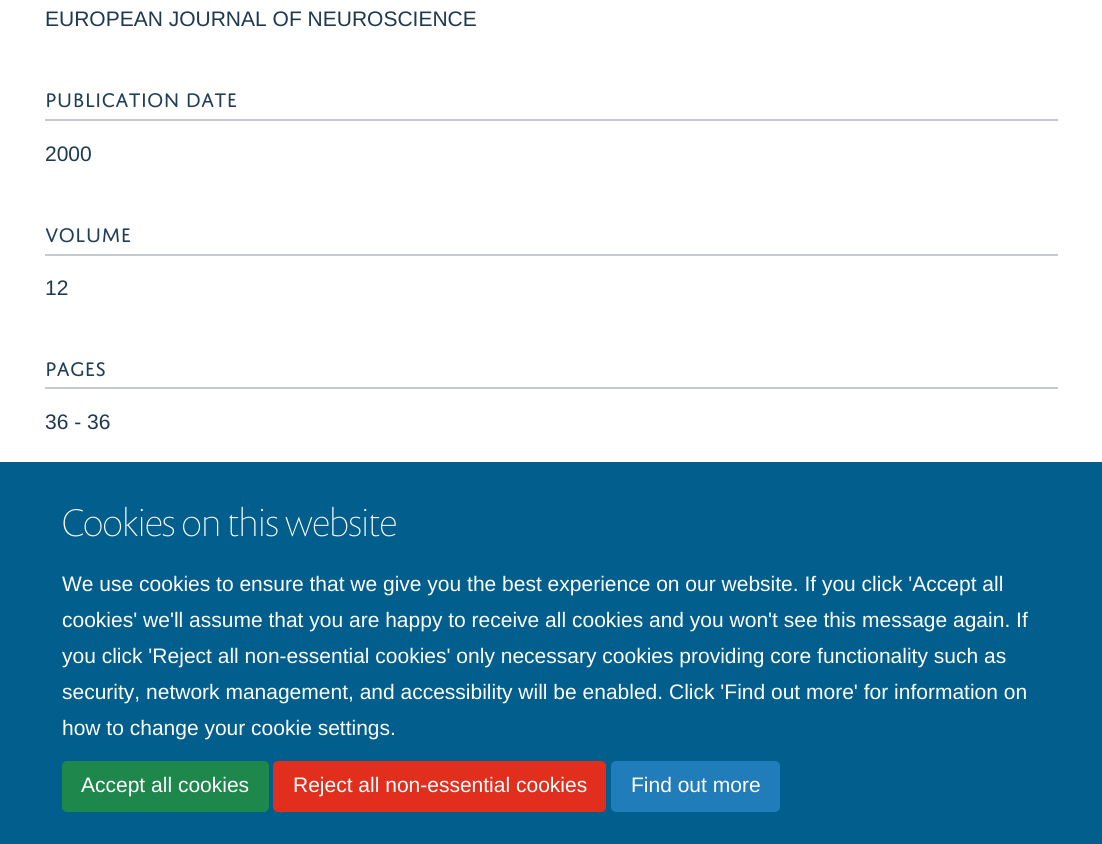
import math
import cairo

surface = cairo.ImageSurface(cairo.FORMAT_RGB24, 1102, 844)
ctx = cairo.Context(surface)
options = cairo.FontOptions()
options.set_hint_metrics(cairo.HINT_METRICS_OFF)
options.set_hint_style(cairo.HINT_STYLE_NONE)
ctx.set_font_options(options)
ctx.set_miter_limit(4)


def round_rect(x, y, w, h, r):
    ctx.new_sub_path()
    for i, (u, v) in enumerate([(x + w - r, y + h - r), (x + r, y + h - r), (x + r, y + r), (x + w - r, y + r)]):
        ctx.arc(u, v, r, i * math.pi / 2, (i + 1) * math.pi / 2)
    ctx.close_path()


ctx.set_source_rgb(1, 1, 1)
ctx.paint()
ctx.select_font_face("Liberation Sans")
ctx.set_font_size(21)
ctx.set_source_rgb(0.114, 0.22, 0.314)
ctx.move_to(45, 26)
ctx.show_text("EUROPEAN JOURNAL OF NEUROSCIENCE")
ctx.set_source_rgb(0.776, 0.792, 0.812)
ctx.rectangle(45, 119, 1013, 2)
ctx.fill()
ctx.select_font_face("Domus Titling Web")
ctx.set_source_rgb(0.125, 0.243, 0.345)
ctx.move_to(45, 107)
ctx.show_text("PUBLICATION DATE")
ctx.select_font_face("Liberation Sans")
ctx.set_source_rgb(0.114, 0.22, 0.314)
ctx.move_to(45, 161)
ctx.show_text("2000")
ctx.set_source_rgb(0.776, 0.792, 0.812)
ctx.rectangle(45, 254, 1013, 2)
ctx.fill()
ctx.select_font_face("Domus Titling Web")
ctx.set_source_rgb(0.125, 0.243, 0.345)
ctx.move_to(45, 242)
ctx.show_text("VOLUME")
ctx.select_font_face("Liberation Sans")
ctx.set_source_rgb(0.114, 0.22, 0.314)
ctx.move_to(45, 295)
ctx.show_text("12")
ctx.set_source_rgb(0.776, 0.792, 0.812)
ctx.rectangle(45, 387, 1013, 2)
ctx.fill()
ctx.select_font_face("Domus Titling Web")
ctx.set_source_rgb(0.125, 0.243, 0.345)
ctx.move_to(45, 376)
ctx.show_text("PAGES")
ctx.select_font_face("Liberation Sans")
ctx.set_source_rgb(0.114, 0.22, 0.314)
ctx.move_to(45, 429)
ctx.show_text("36 - 36")
ctx.set_source_rgb(0.004, 0.369, 0.553)
ctx.rectangle(0, 462, 1102, 382)
ctx.fill()
ctx.select_font_face("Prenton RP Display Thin")
ctx.set_font_size(39)
ctx.set_source_rgb(1, 1, 1)
ctx.move_to(62, 536)
ctx.show_text("Cookies on this website")
ctx.select_font_face("Liberation Sans")
ctx.set_font_size(21)
ctx.move_to(62, 591)
ctx.show_text("We use cookies to ensure that we give you the best experience on our website. If you click 'Accept all")
ctx.move_to(62, 627)
ctx.show_text("cookies' we'll assume that you are happy to receive all cookies and you won't see this message again. If")
ctx.move_to(62, 663)
ctx.show_text("you click 'Reject all non-essential cookies' only necessary cookies providing core functionality such as")
ctx.move_to(62, 699)
ctx.show_text("security, network management, and accessibility will be enabled. Click 'Find out more' for information on")
ctx.move_to(62, 735)
ctx.show_text("how to change your cookie settings.")
ctx.set_source_rgb(0.118, 0.529, 0.294)
round_rect(63, 762, 205, 49, 4)
ctx.fill_preserve()
ctx.stroke()
ctx.set_source_rgb(1, 1, 1)
ctx.move_to(81, 792)
ctx.show_text("Accept all cookies")
ctx.set_source_rgb(0.886, 0.18, 0.11)
round_rect(274, 762, 331, 49, 4)
ctx.fill_preserve()
ctx.stroke()
ctx.set_source_rgb(1, 1, 1)
ctx.move_to(293, 792)
ctx.show_text("Reject all non-essential cookies")
ctx.set_source_rgb(0.129, 0.486, 0.729)
round_rect(612, 762, 167, 49, 4)
ctx.fill_preserve()
ctx.stroke()
ctx.set_source_rgb(1, 1, 1)
ctx.move_to(631, 792)
ctx.show_text("Find out more")
surface.write_to_png("page.png")
